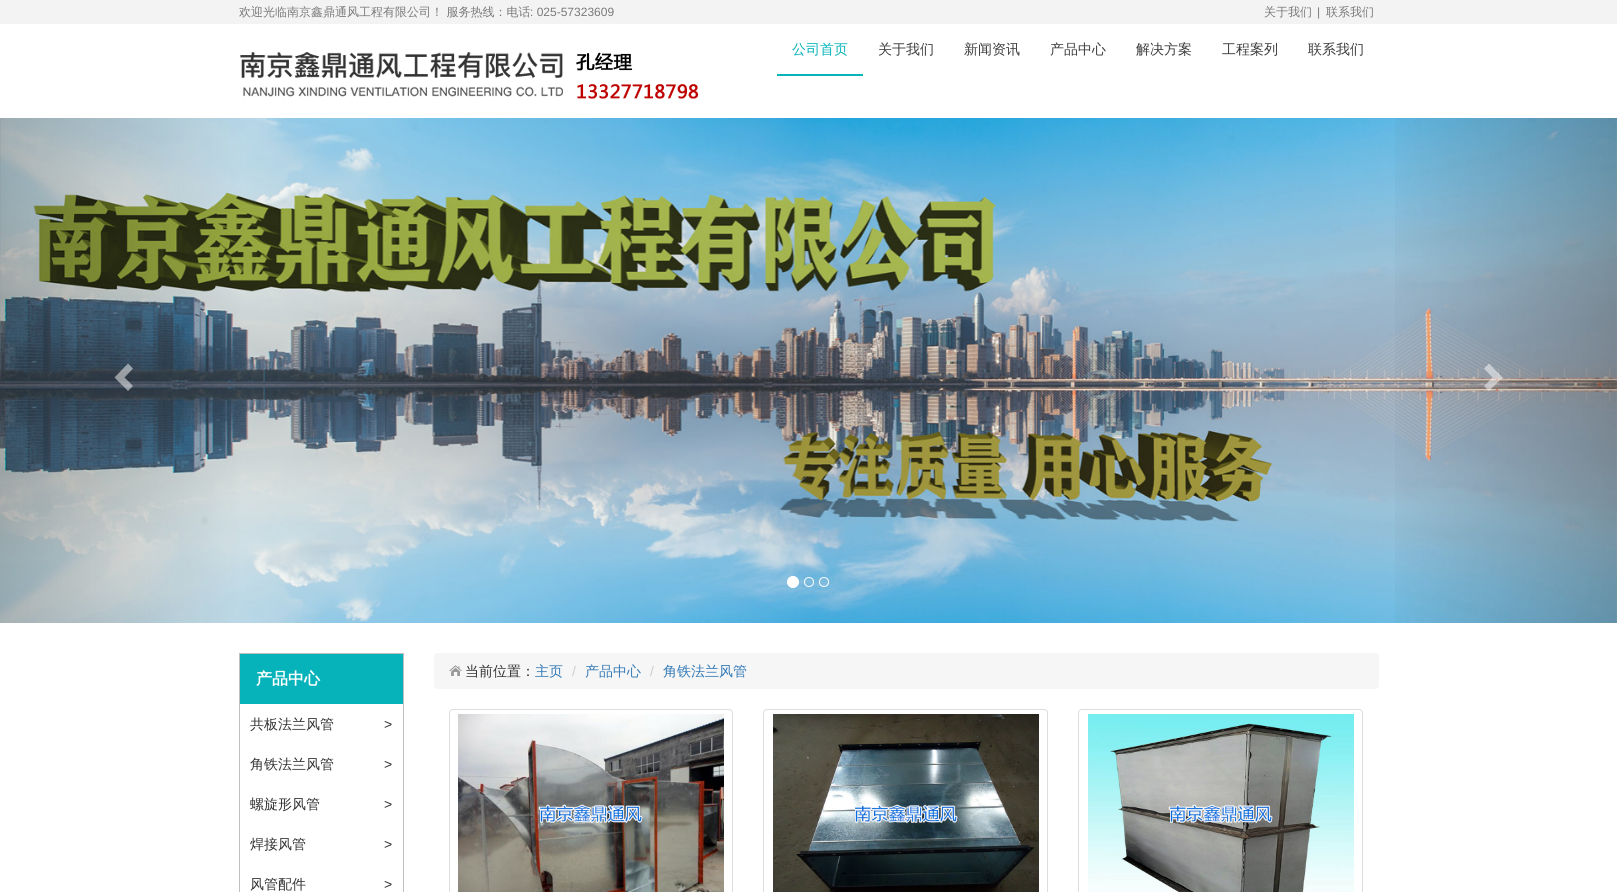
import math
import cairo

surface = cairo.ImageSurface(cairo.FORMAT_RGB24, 1617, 892)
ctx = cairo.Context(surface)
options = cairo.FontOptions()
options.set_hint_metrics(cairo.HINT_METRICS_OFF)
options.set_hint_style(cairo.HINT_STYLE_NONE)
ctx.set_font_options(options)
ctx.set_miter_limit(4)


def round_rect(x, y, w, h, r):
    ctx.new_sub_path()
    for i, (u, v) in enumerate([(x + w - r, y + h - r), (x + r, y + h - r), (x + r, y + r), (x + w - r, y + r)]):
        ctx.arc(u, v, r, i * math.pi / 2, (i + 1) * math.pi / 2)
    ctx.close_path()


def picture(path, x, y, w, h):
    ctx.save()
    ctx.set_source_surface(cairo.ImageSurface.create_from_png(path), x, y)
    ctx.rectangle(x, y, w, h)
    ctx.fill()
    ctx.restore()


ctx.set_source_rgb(1, 1, 1)
ctx.paint()
ctx.set_source_rgb(0.953, 0.953, 0.953)
ctx.rectangle(0, 0, 1617, 24)
ctx.fill()
ctx.select_font_face("WenQuanYi Zen Hei Medium")
ctx.set_font_size(12)
ctx.set_source_rgb(0.482, 0.478, 0.478)
ctx.move_to(239, 16)
ctx.show_text("欢迎光临南京鑫鼎通风工程有限公司！ 服务热线：电话")
ctx.select_font_face("Liberation Sans")
ctx.move_to(530, 16)
ctx.show_text(": 025-57323609")
ctx.select_font_face("WenQuanYi Zen Hei Medium")
ctx.move_to(1264, 16)
ctx.show_text("关于我们")
ctx.select_font_face("Liberation Sans")
ctx.move_to(1317, 16)
ctx.show_text("|")
ctx.select_font_face("WenQuanYi Zen Hei Medium")
ctx.move_to(1326, 16)
ctx.show_text("联系我们")
ctx.set_source_rgb(0.024, 0.702, 0.729)
ctx.rectangle(777, 74, 86, 2)
ctx.fill()
ctx.set_font_size(14)
ctx.move_to(792, 54)
ctx.show_text("公司首页")
ctx.set_source_rgb(0.243, 0.239, 0.239)
ctx.move_to(878, 54)
ctx.show_text("关于我们")
ctx.move_to(964, 54)
ctx.show_text("新闻资讯")
ctx.move_to(1050, 54)
ctx.show_text("产品中心")
ctx.move_to(1136, 54)
ctx.show_text("解决方案")
ctx.move_to(1222, 54)
ctx.show_text("工程案列")
ctx.move_to(1308, 54)
ctx.show_text("联系我们")
picture("img1.png", 240, 52, 459, 47)
picture("img2.png", 0, 118, 1617, 505)
ctx.set_source_rgba(1, 1, 1, 0.5)
ctx.new_path()
ctx.move_to(133, 368.5)
ctx.line_to(124.5, 377.5)
ctx.line_to(133, 386)
ctx.line_to(128, 391)
ctx.line_to(114.5, 377.5)
ctx.line_to(128, 363.5)
ctx.close_path()
ctx.fill()
gradient = cairo.LinearGradient(1374, 371, 1617, 371)
gradient.add_color_stop_rgba(0, 0, 0, 0, 0)
gradient.add_color_stop_rgba(1, 0, 0, 0, 0.25)
ctx.set_source(gradient)
ctx.rectangle(1395, 118, 222, 505)
ctx.fill()
ctx.set_source_rgba(1, 1, 1, 0.5)
ctx.new_path()
ctx.move_to(1502.5, 377.5)
ctx.line_to(1489, 391)
ctx.line_to(1484, 386)
ctx.line_to(1492.5, 377.5)
ctx.line_to(1484, 368.5)
ctx.line_to(1489, 363.5)
ctx.close_path()
ctx.fill()
ctx.set_source_rgb(1, 1, 1)
ctx.arc(793, 582, 5.5, 0, 2 * math.pi)
ctx.fill_preserve()
ctx.set_line_width(1)
ctx.stroke()
ctx.arc(809, 582, 4.5, 0, 2 * math.pi)
ctx.stroke()
ctx.arc(824, 582, 4.5, 0, 2 * math.pi)
ctx.stroke()
ctx.rectangle(239.5, 653.5, 164, 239)
ctx.set_source_rgb(0.749, 0.749, 0.749)
ctx.stroke()
ctx.set_source_rgb(0.024, 0.702, 0.729)
ctx.rectangle(240, 654, 163, 50)
ctx.fill()
ctx.select_font_face("WenQuanYi Zen Hei", cairo.FONT_SLANT_NORMAL, cairo.FONT_WEIGHT_BOLD)
ctx.set_font_size(16)
ctx.set_source_rgb(1, 1, 1)
ctx.move_to(256, 684)
ctx.show_text("产品中心")
ctx.select_font_face("WenQuanYi Zen Hei Medium")
ctx.set_font_size(14)
ctx.set_source_rgb(0.2, 0.2, 0.2)
ctx.move_to(250, 729)
ctx.show_text("共板法兰风管")
ctx.select_font_face("Liberation Sans")
ctx.move_to(384, 729)
ctx.show_text(">")
ctx.select_font_face("WenQuanYi Zen Hei Medium")
ctx.move_to(250, 769)
ctx.show_text("角铁法兰风管")
ctx.select_font_face("Liberation Sans")
ctx.move_to(384, 769)
ctx.show_text(">")
ctx.save()
ctx.rectangle(250, 784, 124, 40)
ctx.clip()
ctx.select_font_face("WenQuanYi Zen Hei Medium")
ctx.move_to(250, 809)
ctx.show_text("螺旋形风管")
ctx.restore()
ctx.move_to(384, 809)
ctx.show_text(">")
ctx.select_font_face("WenQuanYi Zen Hei Medium")
ctx.move_to(250, 849)
ctx.show_text("焊接风管")
ctx.select_font_face("Liberation Sans")
ctx.move_to(384, 849)
ctx.show_text(">")
ctx.select_font_face("WenQuanYi Zen Hei Medium")
ctx.move_to(250, 889)
ctx.show_text("风管配件")
ctx.select_font_face("Liberation Sans")
ctx.move_to(384, 889)
ctx.show_text(">")
ctx.set_source_rgb(0.961, 0.961, 0.961)
round_rect(434, 653, 945, 36, 4)
ctx.fill()
picture("img3.png", 449, 665, 13, 11)
ctx.select_font_face("WenQuanYi Zen Hei Medium")
ctx.set_source_rgb(0.2, 0.2, 0.2)
ctx.move_to(465, 676)
ctx.show_text("当前位置：")
ctx.set_source_rgb(0.2, 0.478, 0.718)
ctx.move_to(535, 676)
ctx.show_text("主页")
ctx.select_font_face("Liberation Sans")
ctx.set_source_rgb(0.8, 0.8, 0.8)
ctx.move_to(572, 676)
ctx.show_text("/")
ctx.select_font_face("WenQuanYi Zen Hei Medium")
ctx.set_source_rgb(0.2, 0.478, 0.718)
ctx.move_to(585, 676)
ctx.show_text("产品中心")
ctx.select_font_face("Liberation Sans")
ctx.set_source_rgb(0.8, 0.8, 0.8)
ctx.move_to(650, 676)
ctx.show_text("/")
ctx.select_font_face("WenQuanYi Zen Hei Medium")
ctx.set_source_rgb(0.2, 0.478, 0.718)
ctx.move_to(663, 676)
ctx.show_text("角铁法兰风管")
round_rect(449.5, 709.5, 283, 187, 3.5)
ctx.set_source_rgb(0.867, 0.867, 0.867)
ctx.stroke()
picture("img4.png", 458, 714, 266, 178)
round_rect(763.5, 709.5, 284, 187, 3.5)
ctx.stroke()
picture("img5.png", 773, 714, 266, 178)
round_rect(1078.5, 709.5, 284, 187, 3.5)
ctx.stroke()
picture("img6.png", 1088, 714, 266, 178)
surface.write_to_png("page.png")
